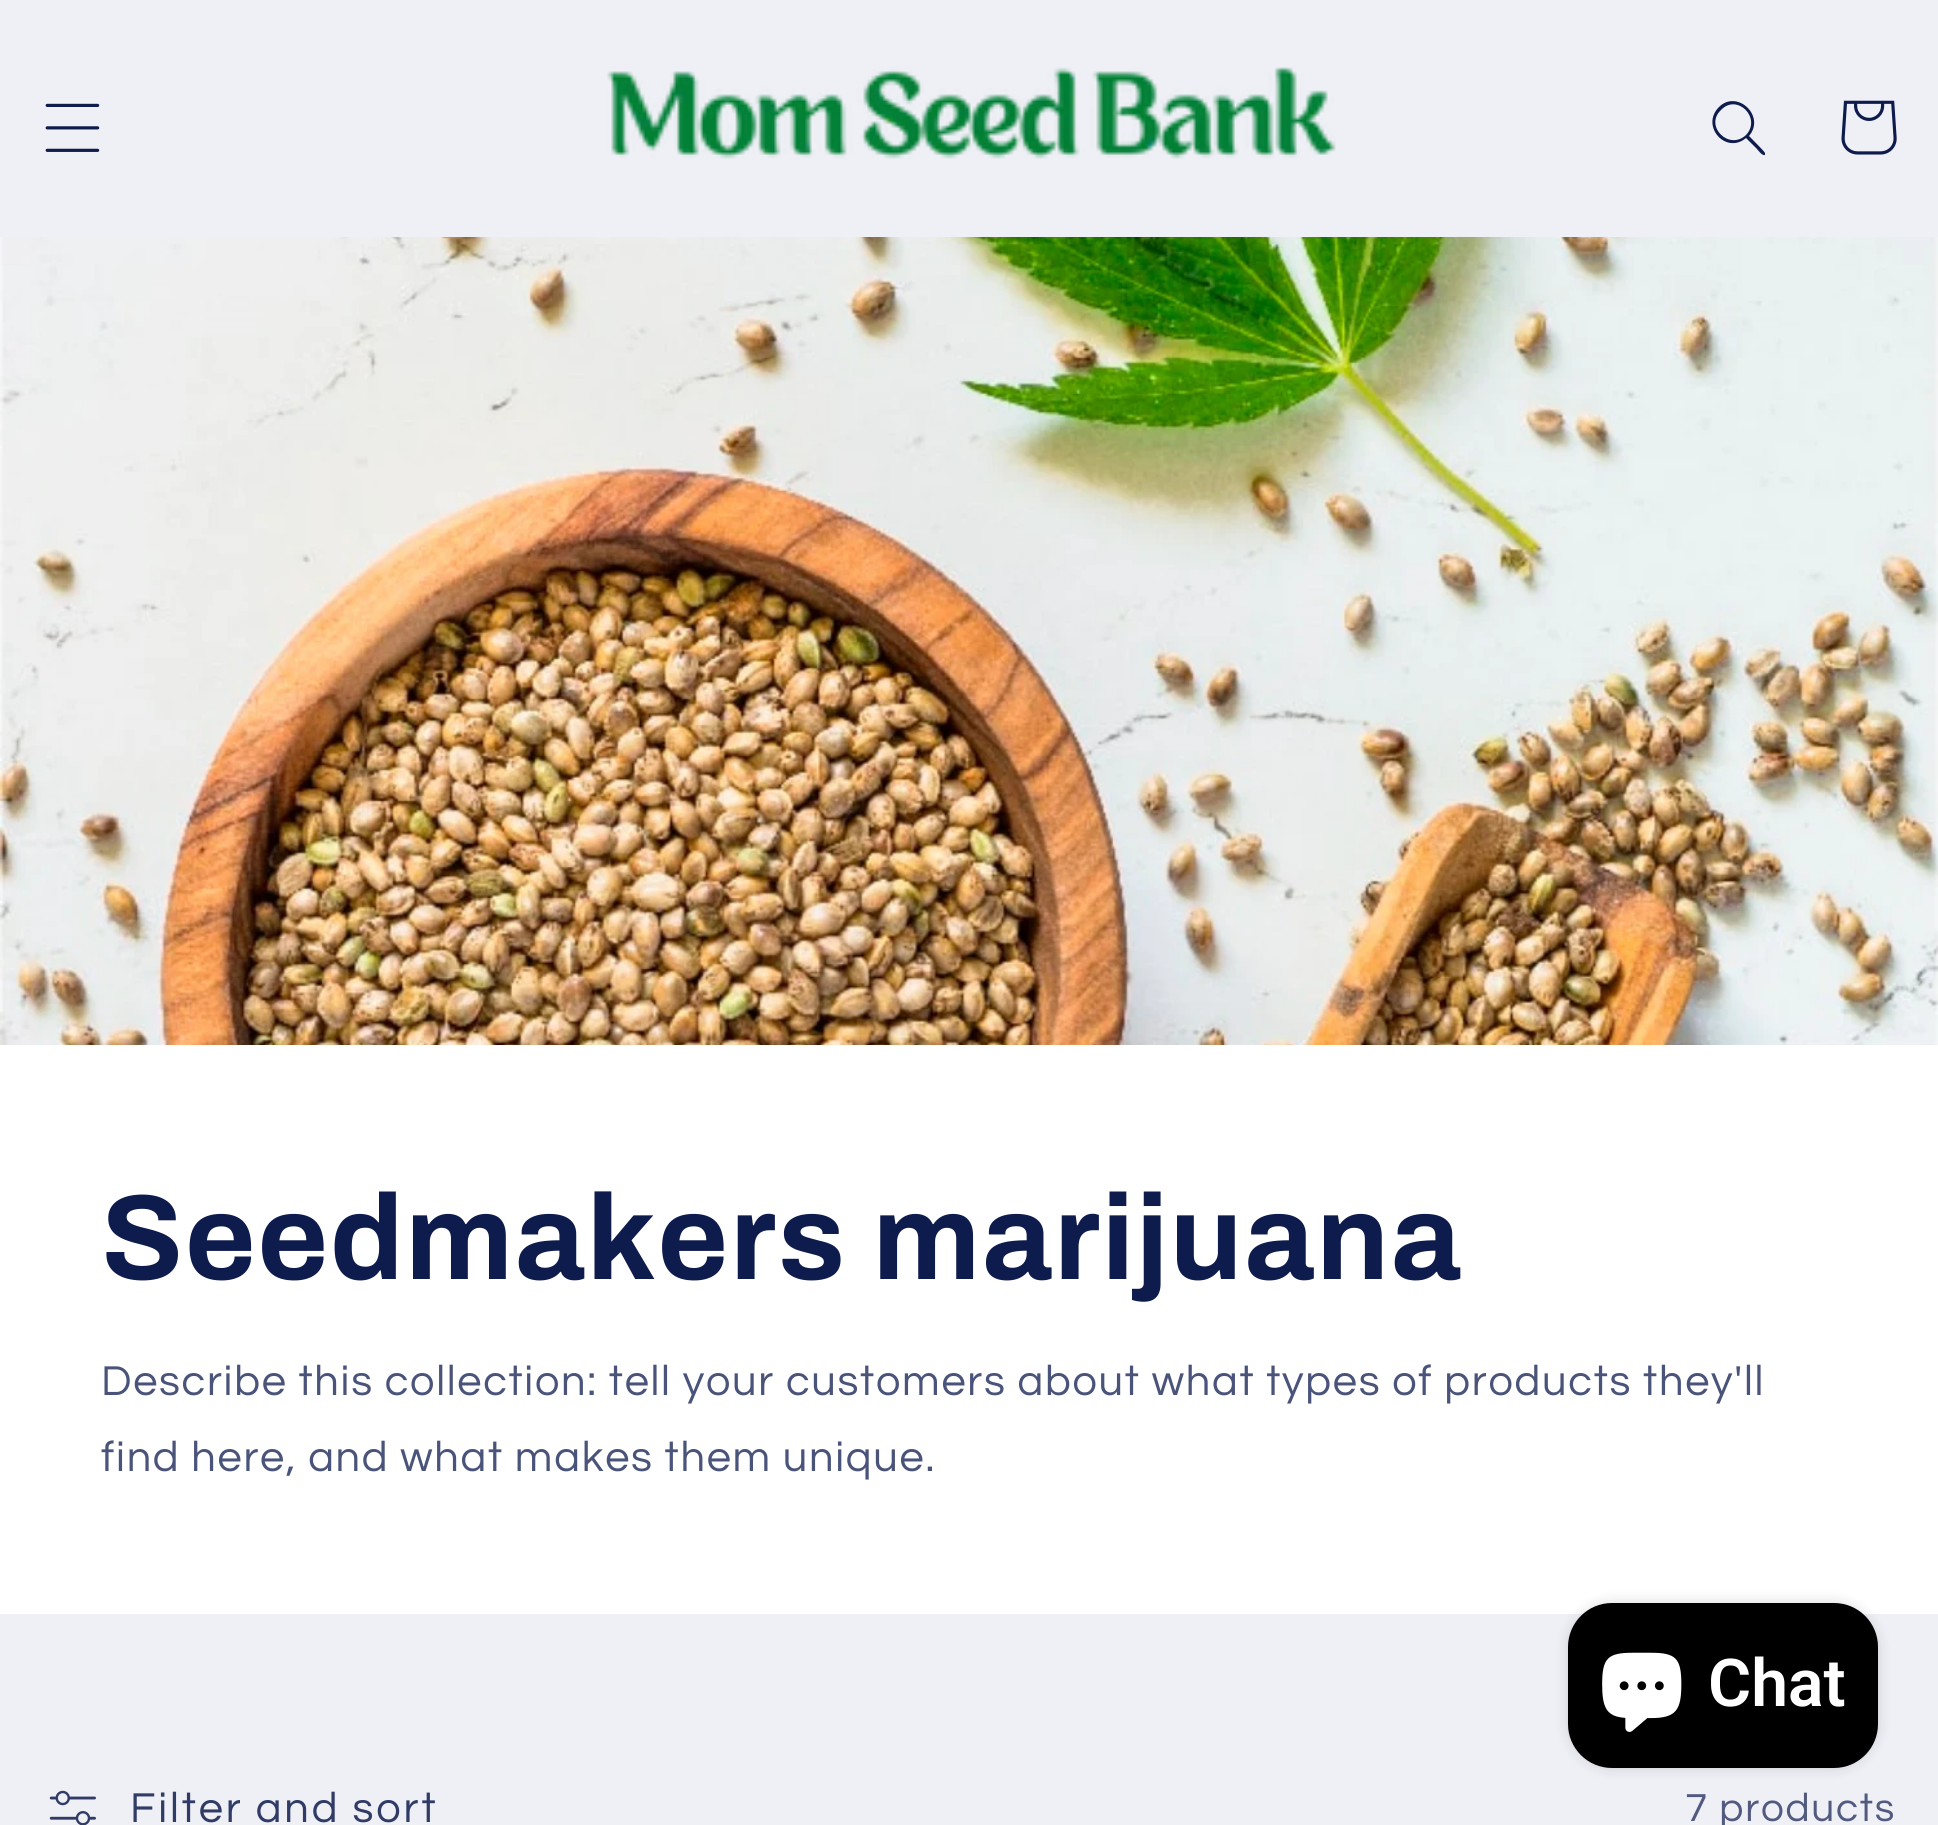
import math
import cairo

surface = cairo.ImageSurface(cairo.FORMAT_RGB24, 1938, 1825)
ctx = cairo.Context(surface)
options = cairo.FontOptions()
options.set_hint_metrics(cairo.HINT_METRICS_OFF)
options.set_hint_style(cairo.HINT_STYLE_NONE)
ctx.set_font_options(options)
ctx.set_miter_limit(4)


def spaced_text(x, y, s, letter, word):
    ctx.move_to(x, y)
    for ch in s:
        ctx.show_text(ch)
        ctx.rel_move_to(letter + word * (ch == ' '), 0)


def round_rect(x, y, w, h, r):
    ctx.new_sub_path()
    for i, (u, v) in enumerate([(x + w - r, y + h - r), (x + r, y + h - r), (x + r, y + r), (x + w - r, y + r)]):
        ctx.arc(u, v, r, i * math.pi / 2, (i + 1) * math.pi / 2)
    ctx.close_path()


def shadow(x, y, w, h, r, blur, alpha):
    ctx.push_group_with_content(cairo.CONTENT_ALPHA)
    ctx.set_operator(cairo.OPERATOR_SOURCE)
    for i in range(15, -16, -2):
        e = blur * i / 6
        if min(w, h) + 2 * e > 0:
            ctx.set_source_rgba(0, 0, 0, alpha * math.erfc((i - 1) / 8.5) / 2)
            round_rect(x - e, y - e, w + 2 * e, h + 2 * e, max(0, min(r + e + blur * .6, min(w, h) / 2 + e)))
            ctx.fill()
    ctx.mask(ctx.pop_group())


def picture(path, x, y, w, h):
    ctx.save()
    ctx.set_source_surface(cairo.ImageSurface.create_from_png(path), x, y)
    ctx.rectangle(x, y, w, h)
    ctx.fill()
    ctx.restore()


ctx.set_source_rgb(0.937, 0.941, 0.961)
ctx.paint()
picture("img1.png", 45, 103, 55, 49)
picture("img2.png", 607, 67, 729, 92)
ctx.set_source_rgb(0.055, 0.106, 0.302)
ctx.set_fill_rule(cairo.FILL_RULE_EVEN_ODD)
ctx.new_path()
ctx.move_to(1746, 135)
ctx.curve_to(1729, 151, 1704, 126, 1721, 110)
ctx.curve_to(1737, 93, 1762, 118, 1746, 135)
ctx.close_path()
ctx.move_to(1746, 138)
ctx.curve_to(1726, 155, 1700, 126, 1719, 107)
ctx.curve_to(1737, 89, 1766, 116, 1749, 136)
ctx.curve_to(1751, 138, 1765, 152, 1765, 153)
ctx.line_to(1765, 155)
ctx.curve_to(1762, 156, 1758, 150, 1757, 149)
ctx.close_path()
ctx.fill()
picture("img3.png", 1841, 100, 56, 55)
picture("img4.png", 0, 237, 1938, 808)
ctx.set_source_rgb(1, 1, 1)
ctx.rectangle(0, 1045, 1938, 569)
ctx.fill()
ctx.select_font_face("Archivo", cairo.FONT_SLANT_NORMAL, cairo.FONT_WEIGHT_BOLD)
ctx.set_font_size(121)
ctx.set_source_rgb(0.055, 0.106, 0.302)
spaced_text(101, 1279, "Seedmakers marijuana", 1.8, 0)
ctx.select_font_face("Questrial")
ctx.set_font_size(43.3)
ctx.set_source_rgb(0.29, 0.329, 0.478)
spaced_text(101, 1395, "Describe this collection: tell your customers about what types of products they'll", 1.73, 0)
spaced_text(101, 1471, "find here, and what makes them unique.", 1.73, 0)
picture("img5.png", 49, 1790, 47, 35)
ctx.set_source_rgb(0.188, 0.231, 0.4)
spaced_text(130, 1822, "Filter and sort", 2.9, 0)
ctx.set_font_size(40.5)
ctx.set_source_rgb(0.322, 0.357, 0.498)
spaced_text(1685, 1821, "7 products", 1.73, 0)
ctx.set_source_rgb(0, 0, 0)
shadow(1568, 1603, 310, 165, 44, 7, 0.15)
ctx.set_source_rgb(0, 0, 0)
round_rect(1568, 1603, 310, 165, 44)
ctx.fill()
picture("img6.png", 1602, 1652, 80, 80)
ctx.select_font_face("Roboto SemiBold")
ctx.set_font_size(66)
ctx.set_source_rgb(1, 1, 1)
ctx.move_to(1708, 1706)
ctx.show_text("Chat")
surface.write_to_png("page.png")
